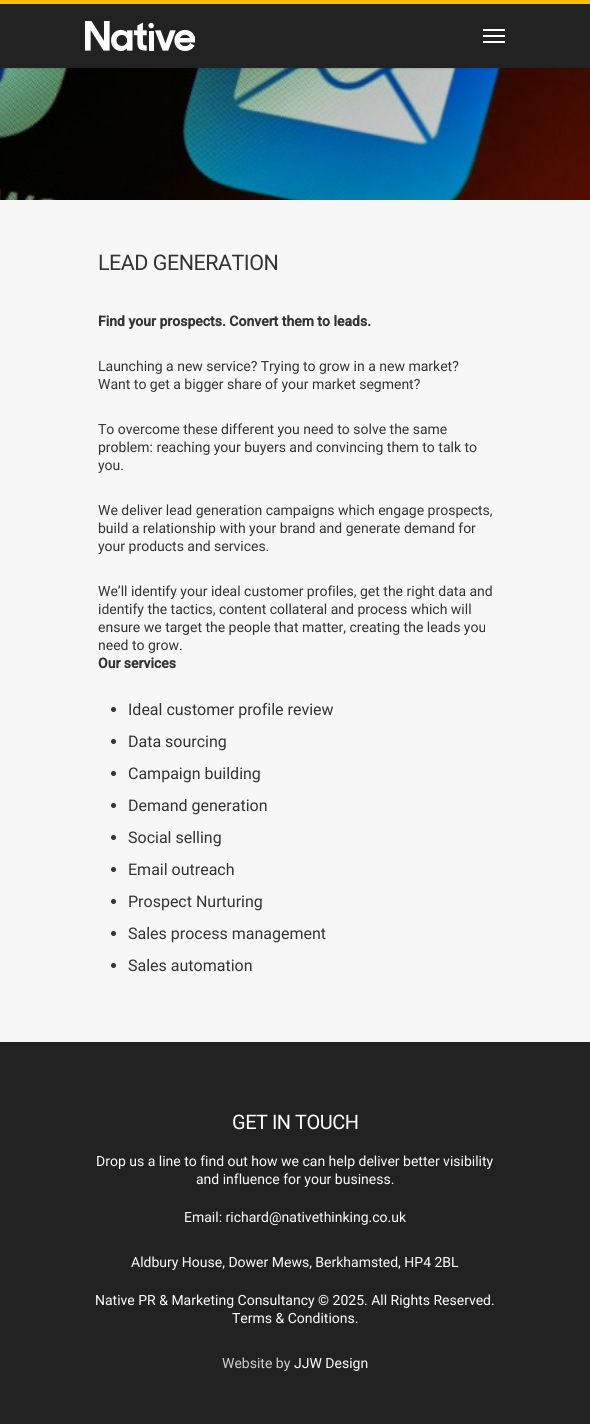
import math
import cairo

surface = cairo.ImageSurface(cairo.FORMAT_RGB24, 590, 1424)
ctx = cairo.Context(surface)
options = cairo.FontOptions()
options.set_hint_metrics(cairo.HINT_METRICS_OFF)
options.set_hint_style(cairo.HINT_STYLE_NONE)
ctx.set_font_options(options)
ctx.set_miter_limit(4)


def spaced_text(x, y, s, letter, word):
    ctx.move_to(x, y)
    for ch in s:
        ctx.show_text(ch)
        ctx.rel_move_to(letter + word * (ch == ' '), 0)


def round_rect(x, y, w, h, r):
    ctx.new_sub_path()
    for i, (u, v) in enumerate([(x + w - r, y + h - r), (x + r, y + h - r), (x + r, y + r), (x + w - r, y + r)]):
        ctx.arc(u, v, r, i * math.pi / 2, (i + 1) * math.pi / 2)
    ctx.close_path()


def shadow(x, y, w, h, r, blur, alpha):
    ctx.push_group_with_content(cairo.CONTENT_ALPHA)
    ctx.set_operator(cairo.OPERATOR_SOURCE)
    for i in range(15, -16, -2):
        e = blur * i / 6
        if min(w, h) + 2 * e > 0:
            ctx.set_source_rgba(0, 0, 0, alpha * math.erfc((i - 1) / 8.5) / 2)
            round_rect(x - e, y - e, w + 2 * e, h + 2 * e, max(0, min(r + e + blur * .6, min(w, h) / 2 + e)))
            ctx.fill()
    ctx.mask(ctx.pop_group())


def picture(path, x, y, w, h):
    ctx.save()
    ctx.set_source_surface(cairo.ImageSurface.create_from_png(path), x, y)
    ctx.rectangle(x, y, w, h)
    ctx.fill()
    ctx.restore()


ctx.set_source_rgb(0.965, 0.965, 0.965)
ctx.paint()
picture("img2.png", 0, 68, 590, 132)
ctx.set_source_rgb(0, 0, 0)
shadow(0, 0, 590, 68, 0, 1.5, 0.22)
ctx.set_source_rgb(0.133, 0.133, 0.133)
ctx.rectangle(0, 4, 590, 64)
ctx.fill()
ctx.set_source_rgb(1, 0.745, 0.047)
ctx.rectangle(0, 0, 590, 4)
ctx.fill()
picture("img1.png", 85, 21, 110, 30)
ctx.set_source_rgb(1, 1, 1)
ctx.rectangle(483, 29, 22, 2)
ctx.fill()
ctx.rectangle(483, 41, 22, 2)
ctx.fill()
ctx.rectangle(483, 35, 22, 2)
ctx.fill()
ctx.select_font_face("Roboto")
ctx.set_font_size(21.5)
ctx.set_source_rgb(0.2, 0.2, 0.2)
spaced_text(98, 270, "LEAD GENERATION", -0.5, 0)
ctx.select_font_face("Roboto", cairo.FONT_SLANT_NORMAL, cairo.FONT_WEIGHT_BOLD)
ctx.set_font_size(14)
ctx.move_to(98, 326)
ctx.show_text("Find your prospects. Convert them to leads.")
ctx.select_font_face("Roboto")
ctx.move_to(98, 371)
ctx.show_text("Launching a new service? Trying to grow in a new market?")
ctx.move_to(98, 389)
ctx.show_text("Want to get a bigger share of your market segment?")
ctx.move_to(98, 434)
ctx.show_text("To overcome these different you need to solve the same")
ctx.move_to(98, 452)
ctx.show_text("problem: reaching your buyers and convincing them to talk to")
ctx.move_to(98, 470)
ctx.show_text("you.")
ctx.move_to(98, 515)
ctx.show_text("We deliver lead generation campaigns which engage prospects,")
ctx.move_to(98, 533)
ctx.show_text("build a relationship with your brand and generate demand for")
ctx.move_to(98, 551)
ctx.show_text("your products and services.")
ctx.move_to(98, 596)
ctx.show_text("We’ll identify your ideal customer profiles, get the right data and")
ctx.move_to(98, 614)
ctx.show_text("identify the tactics, content collateral and process which will")
ctx.move_to(98, 632)
ctx.show_text("ensure we target the people that matter, creating the leads you")
ctx.move_to(98, 650)
ctx.show_text("need to grow.")
ctx.select_font_face("Roboto", cairo.FONT_SLANT_NORMAL, cairo.FONT_WEIGHT_BOLD)
ctx.move_to(98, 668)
ctx.show_text("Our services")
ctx.new_path()
ctx.arc(113.5, 709.5, 2.5, 0, 2 * math.pi)
ctx.fill()
ctx.select_font_face("Roboto")
ctx.set_font_size(16)
ctx.move_to(128, 715)
ctx.show_text("Ideal customer profile review")
ctx.new_path()
ctx.arc(113.5, 741.5, 2.5, 0, 2 * math.pi)
ctx.fill()
ctx.move_to(128, 747)
ctx.show_text("Data sourcing")
ctx.new_path()
ctx.arc(113.5, 773.5, 2.5, 0, 2 * math.pi)
ctx.fill()
ctx.move_to(128, 779)
ctx.show_text("Campaign building")
ctx.new_path()
ctx.arc(113.5, 805.5, 2.5, 0, 2 * math.pi)
ctx.fill()
ctx.move_to(128, 811)
ctx.show_text("Demand generation")
ctx.new_path()
ctx.arc(113.5, 837.5, 2.5, 0, 2 * math.pi)
ctx.fill()
ctx.move_to(128, 843)
ctx.show_text("Social selling")
ctx.new_path()
ctx.arc(113.5, 869.5, 2.5, 0, 2 * math.pi)
ctx.fill()
ctx.move_to(128, 875)
ctx.show_text("Email outreach")
ctx.new_path()
ctx.arc(113.5, 901.5, 2.5, 0, 2 * math.pi)
ctx.fill()
ctx.move_to(128, 907)
ctx.show_text("Prospect Nurturing")
ctx.new_path()
ctx.arc(113.5, 933.5, 2.5, 0, 2 * math.pi)
ctx.fill()
ctx.move_to(128, 939)
ctx.show_text("Sales process management")
ctx.new_path()
ctx.arc(113.5, 965.5, 2.5, 0, 2 * math.pi)
ctx.fill()
ctx.move_to(128, 971)
ctx.show_text("Sales automation")
ctx.set_source_rgb(0.133, 0.133, 0.133)
ctx.rectangle(0, 1042, 590, 382)
ctx.fill()
ctx.set_font_size(20)
ctx.set_source_rgb(1, 1, 1)
spaced_text(232, 1129, "GET IN TOUCH", -0.5, 0)
ctx.set_font_size(14)
ctx.move_to(96, 1166)
ctx.show_text("Drop us a line to find out how we can help deliver better visibility")
ctx.move_to(196, 1184)
ctx.show_text("and influence for your business.")
ctx.move_to(184, 1222)
ctx.show_text("Email: richard@nativethinking.co.uk")
ctx.move_to(131, 1267)
ctx.show_text("Aldbury House, Dower Mews, Berkhamsted, HP4 2BL")
ctx.move_to(95, 1305)
ctx.show_text("Native PR & Marketing Consultancy © 2025. All Rights Reserved.")
ctx.move_to(232, 1323)
ctx.show_text("Terms & Conditions.")
ctx.set_source_rgb(0.812, 0.812, 0.812)
ctx.move_to(222, 1368)
ctx.show_text("Website by")
ctx.set_source_rgb(1, 1, 1)
ctx.move_to(294, 1368)
ctx.show_text("JJW Design")
surface.write_to_png("page.png")
